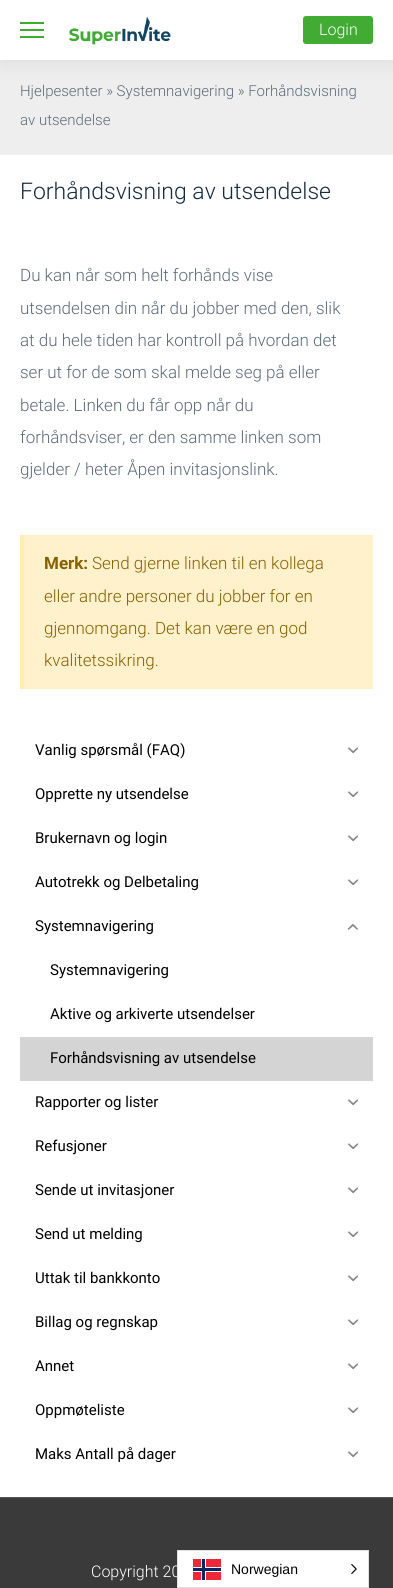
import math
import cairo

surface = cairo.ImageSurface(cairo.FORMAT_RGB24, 393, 1588)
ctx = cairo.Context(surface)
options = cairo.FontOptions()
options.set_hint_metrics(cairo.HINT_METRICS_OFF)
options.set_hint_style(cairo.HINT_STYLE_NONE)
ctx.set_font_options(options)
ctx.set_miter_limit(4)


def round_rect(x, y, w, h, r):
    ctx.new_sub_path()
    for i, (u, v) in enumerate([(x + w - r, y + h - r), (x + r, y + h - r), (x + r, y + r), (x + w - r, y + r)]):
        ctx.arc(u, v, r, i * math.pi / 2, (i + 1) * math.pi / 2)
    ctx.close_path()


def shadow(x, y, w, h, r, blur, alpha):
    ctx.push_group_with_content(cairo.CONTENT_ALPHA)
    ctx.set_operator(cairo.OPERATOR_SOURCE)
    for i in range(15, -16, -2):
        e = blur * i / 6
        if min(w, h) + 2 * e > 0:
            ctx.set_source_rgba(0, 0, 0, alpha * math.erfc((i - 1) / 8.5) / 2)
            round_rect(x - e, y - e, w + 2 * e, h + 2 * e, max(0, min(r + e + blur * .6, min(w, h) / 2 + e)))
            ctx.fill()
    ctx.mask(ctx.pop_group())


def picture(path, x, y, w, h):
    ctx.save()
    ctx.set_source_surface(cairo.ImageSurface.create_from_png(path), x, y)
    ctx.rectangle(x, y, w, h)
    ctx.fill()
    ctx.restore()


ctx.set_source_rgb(1, 1, 1)
ctx.paint()
ctx.set_source_rgb(0.933, 0.933, 0.933)
ctx.rectangle(0, 60, 393, 95)
ctx.fill()
ctx.set_source_rgb(0, 0, 0)
shadow(0, 0, 393, 60, 0, 10, 0.1)
ctx.set_source_rgb(1, 1, 1)
ctx.rectangle(0, 0, 393, 60)
ctx.fill()
ctx.set_source_rgb(0.255, 0.671, 0.204)
ctx.rectangle(20, 22, 24, 2)
ctx.fill()
ctx.rectangle(20, 29, 24, 2)
ctx.fill()
ctx.rectangle(20, 36, 24, 2)
ctx.fill()
picture("img1.png", 69, 17, 102, 28)
round_rect(303, 16, 70, 28, 3)
ctx.fill()
ctx.select_font_face("Roboto Light")
ctx.set_font_size(16)
ctx.set_source_rgb(1, 1, 1)
ctx.move_to(319, 35)
ctx.show_text("Login")
ctx.set_font_size(15)
ctx.set_source_rgb(0.361, 0.42, 0.475)
ctx.move_to(20, 96)
ctx.show_text("Hjelpesenter » Systemnavigering » Forhåndsvisning")
ctx.move_to(20, 125)
ctx.show_text("av utsendelse")
ctx.set_font_size(23)
ctx.set_source_rgb(0.086, 0.169, 0.251)
ctx.move_to(20, 199)
ctx.show_text("Forhåndsvisning av utsendelse")
ctx.set_font_size(17)
ctx.set_source_rgb(0.361, 0.42, 0.475)
ctx.move_to(20, 281)
ctx.show_text("Du kan når som helt forhånds vise")
ctx.move_to(20, 314)
ctx.show_text("utsendelsen din når du jobber med den, slik")
ctx.move_to(20, 346)
ctx.show_text("at du hele tiden har kontroll på hvordan det")
ctx.move_to(20, 378)
ctx.show_text("ser ut for de som skal melde seg på eller")
ctx.move_to(20, 411)
ctx.show_text("betale. Linken du får opp når du")
ctx.move_to(20, 443)
ctx.show_text("forhåndsviser, er den samme linken som")
ctx.move_to(20, 475)
ctx.show_text("gjelder / heter Åpen invitasjonslink.")
ctx.set_source_rgb(1, 0.945, 0.8)
ctx.rectangle(24, 535, 349, 154)
ctx.fill()
ctx.set_source_rgb(1, 0.925, 0.722)
ctx.rectangle(20, 535, 4, 154)
ctx.fill()
ctx.select_font_face("Roboto", cairo.FONT_SLANT_NORMAL, cairo.FONT_WEIGHT_BOLD)
ctx.set_source_rgb(0.522, 0.38, 0)
ctx.move_to(44, 569)
ctx.show_text("Merk:")
ctx.select_font_face("Roboto Light")
ctx.move_to(92, 569)
ctx.show_text("Send gjerne linken til en kollega")
ctx.move_to(44, 602)
ctx.show_text("eller andre personer du jobber for en")
ctx.move_to(44, 634)
ctx.show_text("gjennomgang. Det kan være en god")
ctx.move_to(44, 666)
ctx.show_text("kvalitetssikring.")
ctx.select_font_face("Roboto")
ctx.set_font_size(15)
ctx.set_source_rgb(0, 0, 0)
ctx.move_to(35, 755)
ctx.show_text("Vanlig spørsmål (FAQ)")
picture("img2.png", 348, 747, 11, 7)
ctx.move_to(35, 799)
ctx.show_text("Opprette ny utsendelse")
picture("img2.png", 348, 791, 11, 7)
ctx.move_to(35, 843)
ctx.show_text("Brukernavn og login")
picture("img2.png", 348, 835, 11, 7)
ctx.move_to(35, 887)
ctx.show_text("Autotrekk og Delbetaling")
picture("img2.png", 348, 879, 11, 7)
ctx.move_to(35, 931)
ctx.show_text("Systemnavigering")
picture("img3.png", 347, 924, 11, 6)
ctx.move_to(50, 975)
ctx.show_text("Systemnavigering")
ctx.move_to(50, 1019)
ctx.show_text("Aktive og arkiverte utsendelser")
ctx.set_source_rgb(0.831, 0.831, 0.831)
ctx.rectangle(20, 1037, 353, 44)
ctx.fill()
ctx.set_source_rgb(0, 0, 0)
ctx.move_to(50, 1063)
ctx.show_text("Forhåndsvisning av utsendelse")
ctx.move_to(35, 1107)
ctx.show_text("Rapporter og lister")
picture("img2.png", 348, 1099, 11, 7)
ctx.move_to(35, 1151)
ctx.show_text("Refusjoner")
picture("img2.png", 348, 1143, 11, 7)
ctx.move_to(35, 1195)
ctx.show_text("Sende ut invitasjoner")
picture("img2.png", 348, 1187, 11, 7)
ctx.move_to(35, 1239)
ctx.show_text("Send ut melding")
picture("img2.png", 348, 1231, 11, 7)
ctx.move_to(35, 1283)
ctx.show_text("Uttak til bankkonto")
picture("img2.png", 348, 1275, 11, 7)
ctx.move_to(35, 1327)
ctx.show_text("Billag og regnskap")
picture("img2.png", 348, 1319, 11, 7)
ctx.move_to(35, 1371)
ctx.show_text("Annet")
picture("img2.png", 348, 1363, 11, 7)
ctx.move_to(35, 1415)
ctx.show_text("Oppmøteliste")
picture("img2.png", 348, 1407, 11, 7)
ctx.move_to(35, 1459)
ctx.show_text("Maks Antall på dager")
picture("img2.png", 348, 1451, 11, 7)
ctx.set_source_rgb(0.227, 0.227, 0.227)
ctx.rectangle(0, 1498, 393, 90)
ctx.fill()
ctx.set_source_rgb(0.337, 0.337, 0.337)
ctx.rectangle(0, 1497, 393, 1)
ctx.fill()
ctx.select_font_face("Roboto Light")
ctx.set_font_size(16)
ctx.set_source_rgb(1, 1, 1)
ctx.move_to(91, 1577)
ctx.show_text("Copyright 20")
ctx.rectangle(177.5, 1550.5, 191, 37)
ctx.fill_preserve()
ctx.set_source_rgb(0.878, 0.878, 0.878)
ctx.set_line_width(1)
ctx.stroke()
ctx.set_source_rgb(0.929, 0.161, 0.224)
ctx.rectangle(193, 1559, 28, 21)
ctx.fill()
ctx.set_source_rgb(1, 1, 1)
ctx.rectangle(201, 1559, 5, 21)
ctx.fill()
ctx.rectangle(193, 1567, 28, 5)
ctx.fill()
ctx.set_source_rgb(0, 0.149, 0.392)
ctx.rectangle(202, 1559, 3, 21)
ctx.fill()
ctx.rectangle(193, 1568, 28, 3)
ctx.fill()
ctx.select_font_face("Liberation Sans")
ctx.set_font_size(14)
ctx.set_source_rgb(0, 0, 0)
ctx.move_to(231, 1574)
ctx.show_text("Norwegian")
picture("img4.png", 351, 1564, 6, 10)
surface.write_to_png("page.png")
